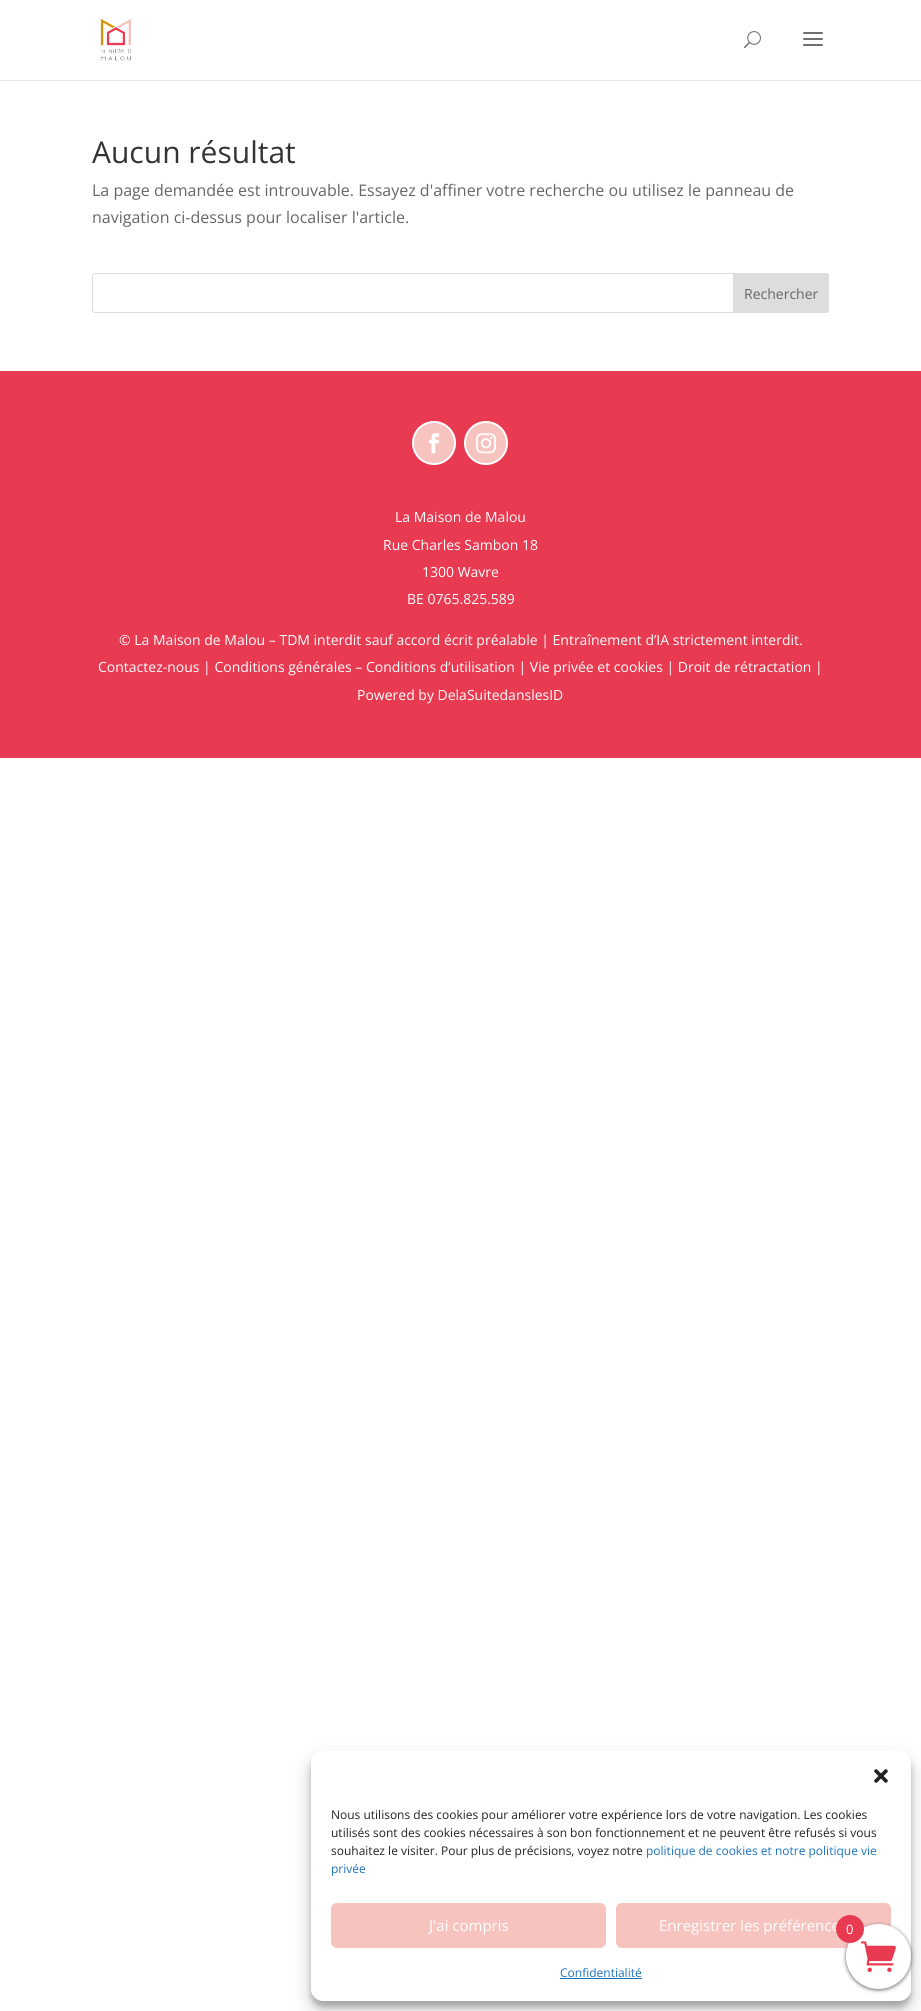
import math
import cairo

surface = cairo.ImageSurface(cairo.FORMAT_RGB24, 921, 2011)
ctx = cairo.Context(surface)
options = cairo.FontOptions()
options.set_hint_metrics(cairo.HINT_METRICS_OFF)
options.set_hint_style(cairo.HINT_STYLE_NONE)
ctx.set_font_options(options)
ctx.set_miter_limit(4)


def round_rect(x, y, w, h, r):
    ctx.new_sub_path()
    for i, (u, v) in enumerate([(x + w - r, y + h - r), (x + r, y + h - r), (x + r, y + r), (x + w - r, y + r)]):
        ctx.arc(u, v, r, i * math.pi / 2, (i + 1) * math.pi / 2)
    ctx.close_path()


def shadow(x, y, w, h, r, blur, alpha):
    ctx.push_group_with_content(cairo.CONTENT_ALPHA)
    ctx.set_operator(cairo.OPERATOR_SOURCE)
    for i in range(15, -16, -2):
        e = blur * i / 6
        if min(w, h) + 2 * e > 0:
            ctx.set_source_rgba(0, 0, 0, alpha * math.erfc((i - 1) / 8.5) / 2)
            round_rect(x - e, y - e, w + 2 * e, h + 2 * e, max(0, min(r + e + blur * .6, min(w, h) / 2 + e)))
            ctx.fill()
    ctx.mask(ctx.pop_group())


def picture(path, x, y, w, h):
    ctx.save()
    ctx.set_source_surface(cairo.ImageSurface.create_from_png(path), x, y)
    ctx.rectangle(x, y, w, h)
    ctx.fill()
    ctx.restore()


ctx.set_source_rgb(1, 1, 1)
ctx.paint()
ctx.set_source_rgb(0.902, 0.902, 0.902)
ctx.rectangle(0, 80, 921, 1)
ctx.fill()
picture("img1.png", 100, 19, 32, 42)
picture("img2.png", 744, 31, 17, 18)
picture("img3.png", 803, 32, 20, 14)
ctx.select_font_face("Open Sans")
ctx.set_font_size(30)
ctx.set_source_rgb(0.2, 0.2, 0.2)
ctx.move_to(92, 163)
ctx.show_text("Aucun résultat")
ctx.set_font_size(16)
ctx.set_source_rgb(0.4, 0.4, 0.4)
ctx.move_to(92, 196)
ctx.show_text("La page demandée est introuvable. Essayez d'affiner votre recherche ou utilisez le panneau de")
ctx.move_to(92, 223)
ctx.show_text("navigation ci-dessus pour localiser l'article.")
round_rect(92.5, 273.5, 736, 39, 2.5)
ctx.set_source_rgb(0.867, 0.867, 0.867)
ctx.set_line_width(1)
ctx.stroke()
ctx.new_path()
ctx.move_to(733.5, 273.5)
ctx.line_to(826, 273.5)
ctx.curve_to(827.5, 273.5, 828.5, 274.5, 828.5, 276)
ctx.line_to(828.5, 310)
ctx.curve_to(828.5, 311.5, 827.5, 312.5, 826, 312.5)
ctx.line_to(733.5, 312.5)
ctx.close_path()
ctx.fill_preserve()
ctx.stroke()
ctx.set_font_size(14)
ctx.set_source_rgb(0.4, 0.4, 0.4)
ctx.move_to(744, 299)
ctx.show_text("Rechercher")
ctx.set_source_rgb(0.91, 0.227, 0.318)
ctx.rectangle(0, 371, 921, 387)
ctx.fill()
ctx.set_source_rgb(0.965, 0.765, 0.749)
ctx.arc(434, 443, 21, 0, 2 * math.pi)
ctx.fill_preserve()
ctx.set_source_rgb(1, 1, 1)
ctx.set_line_width(2)
ctx.stroke()
picture("img4.png", 429, 433, 10, 21)
ctx.set_source_rgb(0.965, 0.765, 0.749)
ctx.arc(486, 443, 21, 0, 2 * math.pi)
ctx.fill_preserve()
ctx.set_source_rgb(1, 1, 1)
ctx.stroke()
picture("img5.png", 476, 433, 20, 21)
ctx.move_to(395, 522)
ctx.show_text("La Maison de Malou")
ctx.move_to(383, 550)
ctx.show_text("Rue Charles Sambon 18")
ctx.move_to(422, 577)
ctx.show_text("1300 Wavre")
ctx.move_to(407, 604)
ctx.show_text("BE 0765.825.589")
ctx.move_to(119, 645)
ctx.show_text("© La Maison de Malou – TDM interdit sauf accord écrit préalable | Entraînement d’IA strictement interdit.")
ctx.move_to(98, 672)
ctx.show_text("Contactez-nous | Conditions générales – Conditions d’utilisation | Vie privée et cookies | Droit de rétractation |")
ctx.move_to(357, 700)
ctx.show_text("Powered by DelaSuitedanslesID")
ctx.set_source_rgb(0, 0, 0)
shadow(311, 1757, 600, 250, 12, 3, 0.23)
shadow(311, 1761, 600, 250, 12, 10, 0.19)
ctx.set_source_rgb(1, 1, 1)
round_rect(311, 1751, 600, 250, 12)
ctx.fill()
picture("img6.png", 874, 1769, 14, 14)
ctx.set_font_size(12)
ctx.set_source_rgb(0.133, 0.133, 0.133)
ctx.move_to(331, 1819)
ctx.show_text("Nous utilisons des cookies pour améliorer votre expérience lors de votre navigation. Les cookies")
ctx.move_to(331, 1837)
ctx.show_text("utilisés sont des cookies nécessaires à son bon fonctionnement et ne peuvent être refusés si vous")
ctx.move_to(331, 1855)
ctx.show_text("souhaitez le visiter. Pour plus de précisions, voyez notre")
ctx.set_source_rgb(0.118, 0.451, 0.745)
ctx.move_to(646, 1855)
ctx.show_text("politique de cookies et notre politique vie")
ctx.move_to(331, 1873)
ctx.show_text("privée")
ctx.set_source_rgb(0.965, 0.765, 0.749)
round_rect(331.5, 1903.5, 274, 44, 5.5)
ctx.fill_preserve()
ctx.set_line_width(1)
ctx.stroke()
ctx.set_font_size(15)
ctx.set_source_rgb(1, 1, 1)
ctx.move_to(429, 1931)
ctx.show_text("J'ai compris")
ctx.set_source_rgb(0.965, 0.765, 0.749)
round_rect(616.5, 1903.5, 274, 44, 5.5)
ctx.fill_preserve()
ctx.stroke()
ctx.set_source_rgb(1, 1, 1)
ctx.move_to(659, 1931)
ctx.show_text("Enregistrer les préférence")
ctx.set_font_size(12)
ctx.set_source_rgb(0.118, 0.451, 0.745)
ctx.move_to(560, 1977)
ctx.show_text("Confidentialité")
ctx.rectangle(560, 1978, 82, 1)
ctx.fill()
ctx.set_source_rgb(0.4, 0.4, 0.4)
shadow(846, 1925, 65, 65, 32.5, 2, 1)
ctx.set_source_rgb(1, 1, 1)
ctx.arc(878.5, 1956.5, 32.5, 0, 2 * math.pi)
ctx.fill()
picture("img7.png", 860, 1941, 36, 31)
ctx.set_source_rgb(0.91, 0.227, 0.318)
ctx.arc(850, 1929, 14, 0, 2 * math.pi)
ctx.fill()
ctx.set_font_size(13)
ctx.set_source_rgb(1, 1, 1)
ctx.move_to(846, 1934)
ctx.show_text("0")
surface.write_to_png("page.png")
